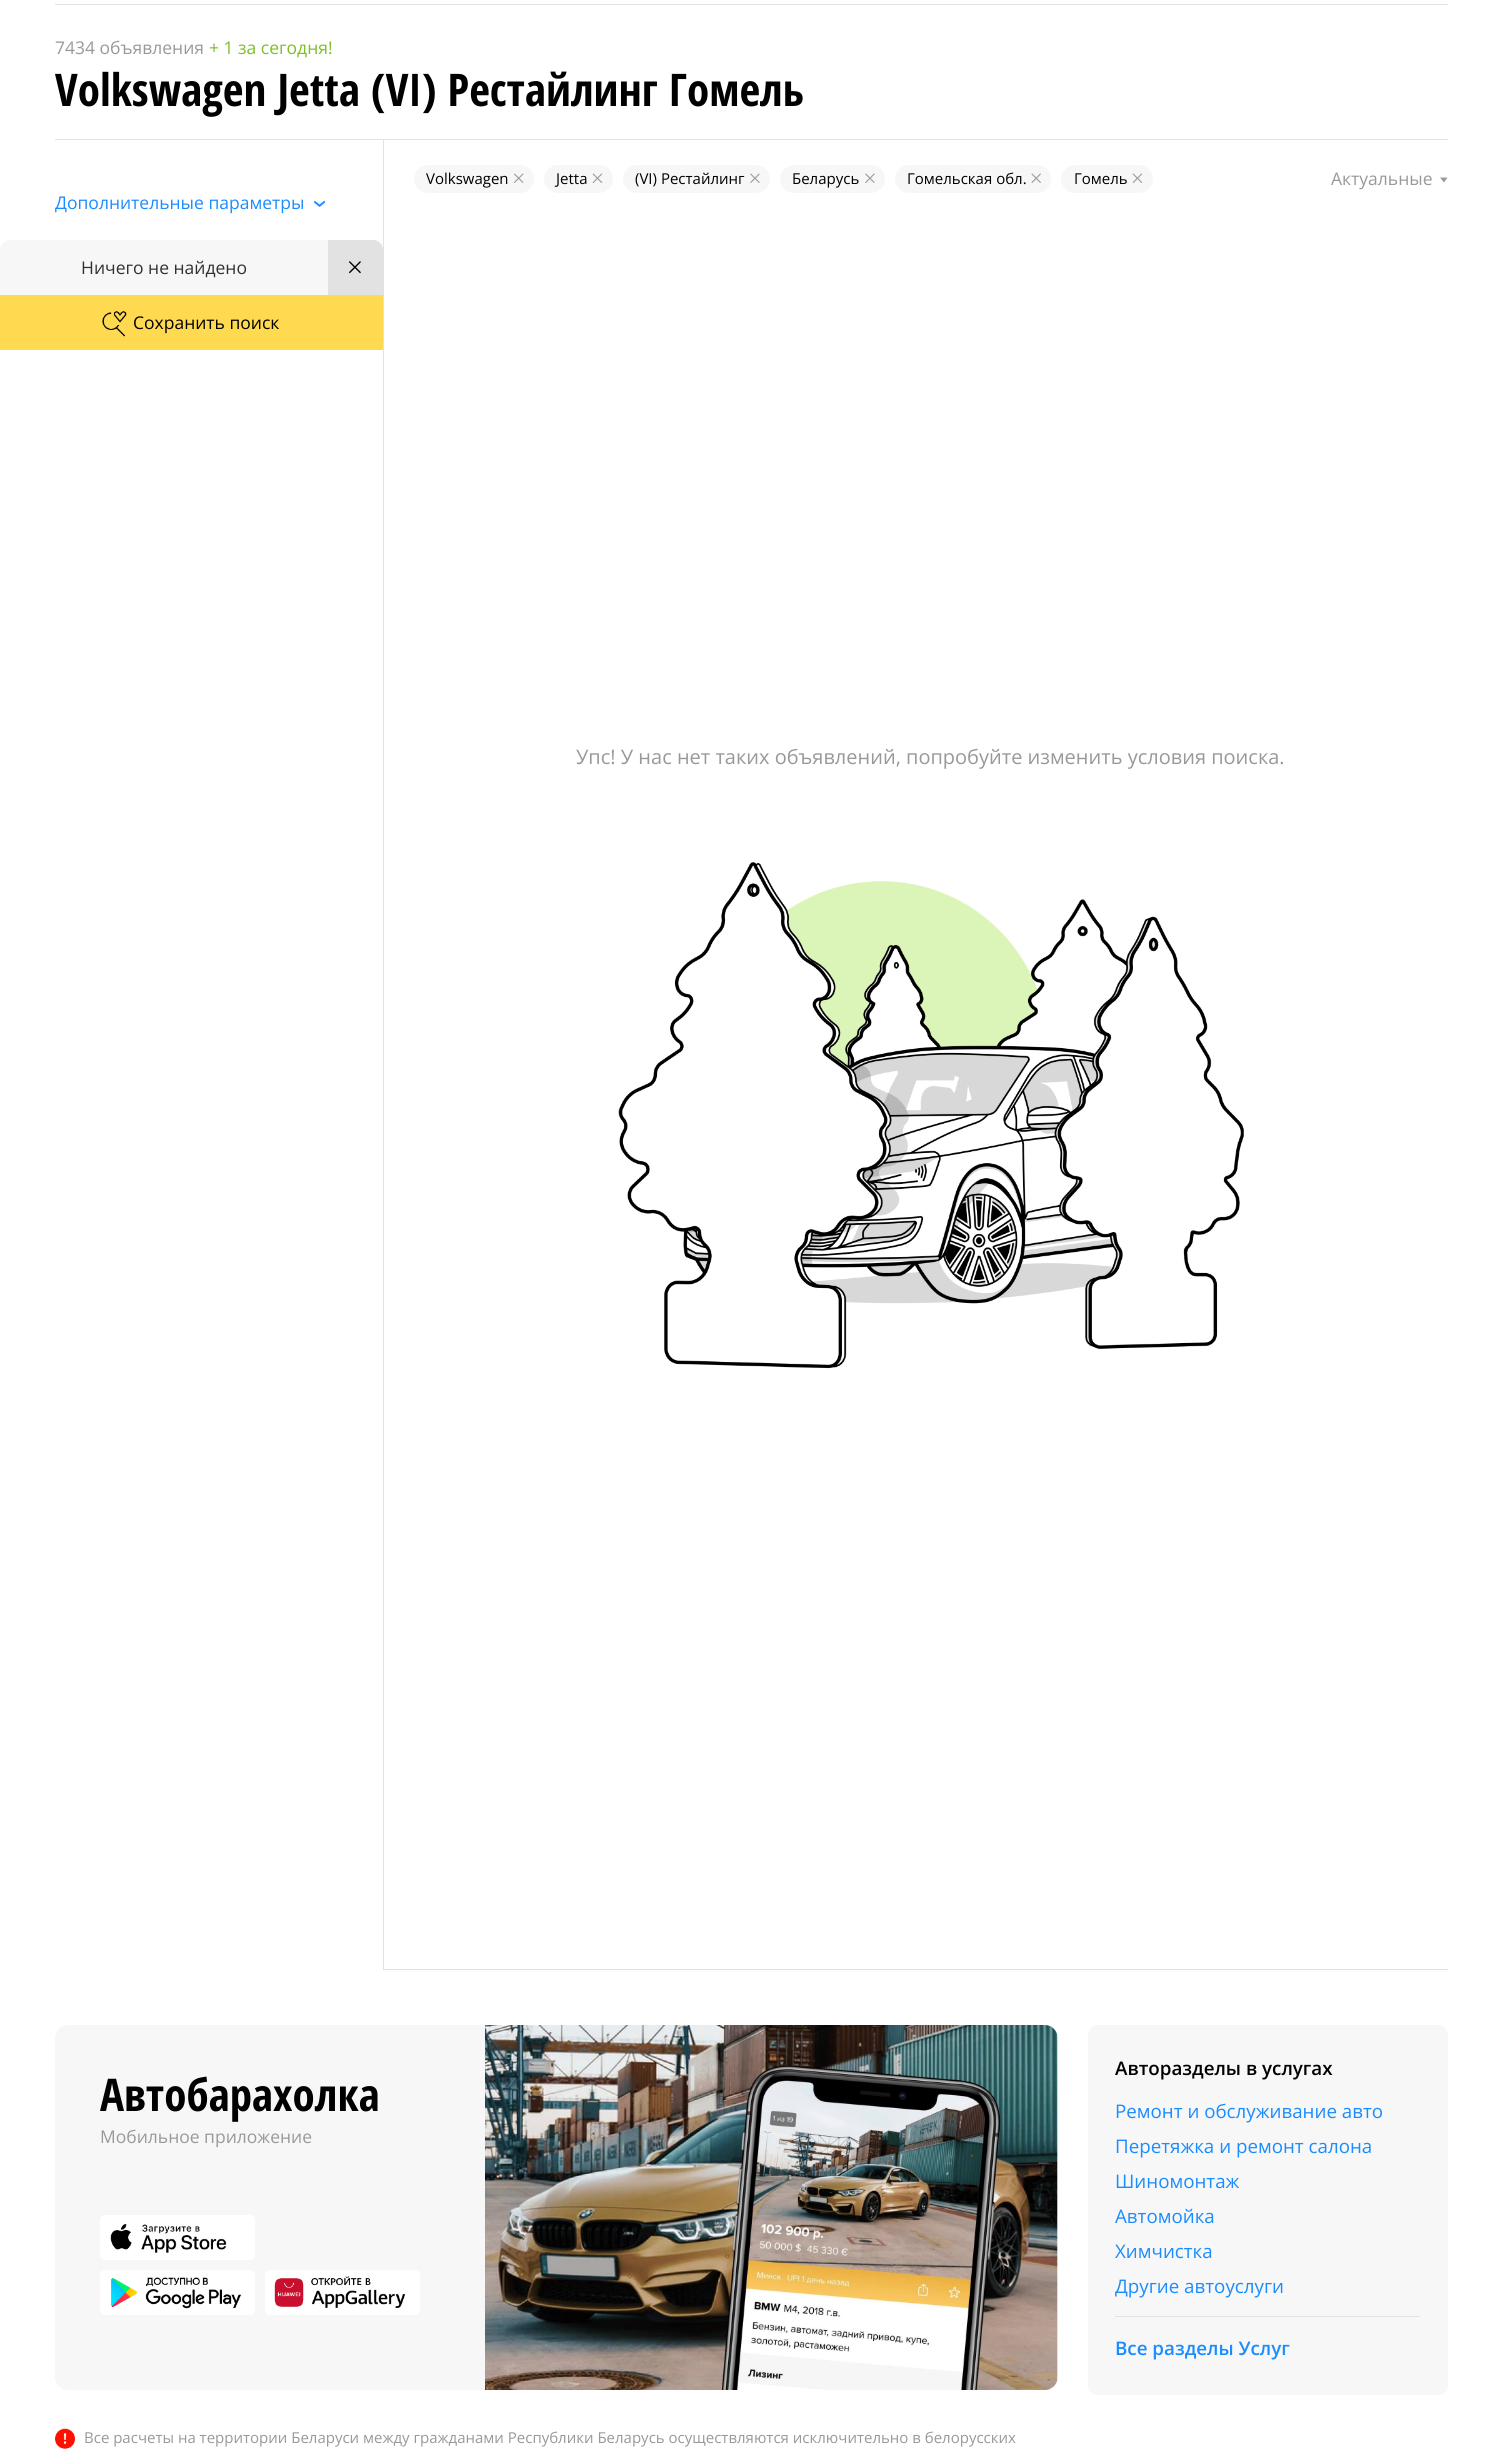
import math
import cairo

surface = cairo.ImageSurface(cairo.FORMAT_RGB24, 1502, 2451)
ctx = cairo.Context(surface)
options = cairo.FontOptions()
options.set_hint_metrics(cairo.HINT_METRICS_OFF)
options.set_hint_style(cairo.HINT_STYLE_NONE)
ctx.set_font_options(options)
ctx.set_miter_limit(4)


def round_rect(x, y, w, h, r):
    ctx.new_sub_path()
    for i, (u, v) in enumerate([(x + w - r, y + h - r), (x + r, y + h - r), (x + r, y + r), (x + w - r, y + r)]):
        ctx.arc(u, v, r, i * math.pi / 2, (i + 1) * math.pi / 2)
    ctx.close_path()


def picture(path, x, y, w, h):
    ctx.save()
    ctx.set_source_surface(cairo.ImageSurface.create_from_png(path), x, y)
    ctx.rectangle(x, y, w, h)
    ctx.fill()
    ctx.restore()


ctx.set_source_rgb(1, 1, 1)
ctx.paint()
ctx.set_source_rgb(0.886, 0.886, 0.886)
ctx.rectangle(55, 4, 1393, 1)
ctx.fill()
ctx.select_font_face("Open Sans")
ctx.set_font_size(17.5)
ctx.set_source_rgb(0.6, 0.6, 0.6)
ctx.move_to(55, 54)
ctx.show_text("7434 объявления")
ctx.set_source_rgb(0.49, 0.749, 0.149)
ctx.move_to(209, 54)
ctx.show_text("+ 1 за сегодня!")
ctx.select_font_face("Open Sans Condensed", cairo.FONT_SLANT_NORMAL, cairo.FONT_WEIGHT_BOLD)
ctx.set_font_size(45)
ctx.set_source_rgb(0, 0, 0)
ctx.move_to(55, 106)
ctx.show_text("Volkswagen Jetta (VI) Рестайлинг Гомель")
ctx.set_source_rgb(0.886, 0.886, 0.886)
ctx.rectangle(55, 139, 1393, 1)
ctx.fill()
ctx.rectangle(383, 139, 1, 1831)
ctx.fill()
ctx.select_font_face("Open Sans")
ctx.set_font_size(17.5)
ctx.set_source_rgb(0.098, 0.549, 1)
ctx.move_to(55, 209)
ctx.show_text("Дополнительные параметры")
ctx.set_font_size(28)
ctx.save()
ctx.translate(327, 208)
ctx.rotate(-90 * math.pi / 180)
ctx.move_to(0, 0)
ctx.show_text("‹")
ctx.restore()
ctx.set_source_rgb(0.965, 0.965, 0.965)
ctx.new_path()
ctx.move_to(10, 240)
ctx.line_to(373, 240)
ctx.curve_to(378.5, 240, 383, 244.5, 383, 250)
ctx.line_to(383, 295)
ctx.line_to(0, 295)
ctx.line_to(0, 250)
ctx.curve_to(0, 244.5, 4.5, 240, 10, 240)
ctx.close_path()
ctx.fill()
ctx.set_font_size(17.5)
ctx.set_source_rgb(0.192, 0.192, 0.192)
ctx.move_to(81, 274)
ctx.show_text("Ничего не найдено")
ctx.set_source_rgb(0.886, 0.886, 0.886)
ctx.new_path()
ctx.move_to(328, 240)
ctx.line_to(373, 240)
ctx.curve_to(378.5, 240, 383, 244.5, 383, 250)
ctx.line_to(383, 295)
ctx.line_to(328, 295)
ctx.close_path()
ctx.fill()
picture("img1.png", 348, 261, 13, 13)
ctx.set_source_rgb(1, 0.855, 0.314)
ctx.rectangle(0, 295, 383, 55)
ctx.fill()
picture("img2.png", 102, 311, 25, 26)
ctx.set_source_rgb(0, 0, 0)
ctx.move_to(133, 329)
ctx.show_text("Сохранить поиск")
ctx.set_source_rgb(0.886, 0.886, 0.886)
ctx.rectangle(384, 1969, 1064, 1)
ctx.fill()
ctx.set_source_rgb(0.965, 0.965, 0.965)
round_rect(414, 165, 120, 28, 14)
ctx.fill()
ctx.set_font_size(15)
ctx.set_source_rgb(0, 0, 0)
ctx.move_to(426, 184)
ctx.show_text("Volkswagen")
picture("img3.png", 514, 173, 10, 10)
ctx.set_source_rgb(0.965, 0.965, 0.965)
round_rect(544, 165, 69, 28, 14)
ctx.fill()
ctx.set_source_rgb(0, 0, 0)
ctx.move_to(556, 184)
ctx.show_text("Jetta")
picture("img4.png", 592, 173, 11, 10)
ctx.set_source_rgb(0.965, 0.965, 0.965)
round_rect(623, 165, 147, 28, 14)
ctx.fill()
ctx.set_source_rgb(0, 0, 0)
ctx.move_to(635, 184)
ctx.show_text("(VI) Рестайлинг")
picture("img5.png", 750, 173, 10, 10)
ctx.set_source_rgb(0.965, 0.965, 0.965)
round_rect(780, 165, 105, 28, 14)
ctx.fill()
ctx.set_source_rgb(0, 0, 0)
ctx.move_to(792, 184)
ctx.show_text("Беларусь")
picture("img5.png", 865, 173, 10, 10)
ctx.set_source_rgb(0.965, 0.965, 0.965)
round_rect(895, 165, 156, 28, 14)
ctx.fill()
ctx.set_source_rgb(0, 0, 0)
ctx.move_to(907, 184)
ctx.show_text("Гомельская обл.")
picture("img6.png", 1031, 173, 10, 10)
ctx.set_source_rgb(0.965, 0.965, 0.965)
round_rect(1061, 165, 92, 28, 14)
ctx.fill()
ctx.set_source_rgb(0, 0, 0)
ctx.move_to(1074, 184)
ctx.show_text("Гомель")
picture("img4.png", 1132, 173, 11, 10)
ctx.set_font_size(17.5)
ctx.set_source_rgb(0.6, 0.6, 0.6)
ctx.move_to(1331, 185)
ctx.show_text("Актуальные")
ctx.new_path()
ctx.move_to(1440, 177.5)
ctx.line_to(1447.5, 177.5)
ctx.line_to(1444, 182.5)
ctx.close_path()
ctx.fill()
ctx.set_font_size(20)
ctx.move_to(576, 764)
ctx.show_text("Упс! У нас нет таких объявлений, попробуйте изменить условия поиска.")
picture("img7.png", 618, 862, 626, 507)
ctx.set_source_rgb(0.965, 0.965, 0.965)
round_rect(55, 2025, 1003, 365, 13)
ctx.fill()
ctx.select_font_face("Open Sans Condensed", cairo.FONT_SLANT_NORMAL, cairo.FONT_WEIGHT_BOLD)
ctx.set_font_size(45)
ctx.set_source_rgb(0, 0, 0)
ctx.move_to(100, 2111)
ctx.show_text("Автобарахолка")
picture("img8.png", 485, 2025, 573, 365)
ctx.select_font_face("Open Sans")
ctx.set_font_size(17.5)
ctx.set_source_rgb(0.6, 0.6, 0.6)
ctx.move_to(100, 2143)
ctx.show_text("Мобильное приложение")
picture("img9.png", 100, 2215, 155, 45)
picture("img10.png", 100, 2270, 155, 45)
picture("img11.png", 265, 2270, 155, 45)
picture("img12.png", 55, 2428, 20, 21)
ctx.set_font_size(15)
ctx.move_to(84, 2443)
ctx.show_text("Все расчеты на территории Беларуси между гражданами Республики Беларусь осуществляются исключительно в белорусских")
ctx.set_source_rgb(0.965, 0.965, 0.965)
round_rect(1088, 2025, 360, 370, 10)
ctx.fill()
ctx.select_font_face("Open Sans SemiBold")
ctx.set_font_size(18.75)
ctx.set_source_rgb(0, 0, 0)
ctx.move_to(1115, 2075)
ctx.show_text("Авторазделы в услугах")
ctx.select_font_face("Open Sans")
ctx.set_source_rgb(0.098, 0.549, 1)
ctx.move_to(1115, 2118)
ctx.show_text("Ремонт и обслуживание авто")
ctx.move_to(1115, 2153)
ctx.show_text("Перетяжка и ремонт салона")
ctx.move_to(1115, 2188)
ctx.show_text("Шиномонтаж")
ctx.move_to(1115, 2223)
ctx.show_text("Автомойка")
ctx.move_to(1115, 2258)
ctx.show_text("Химчистка")
ctx.move_to(1115, 2293)
ctx.show_text("Другие автоуслуги")
ctx.set_source_rgb(0.886, 0.886, 0.886)
ctx.rectangle(1115, 2316, 305, 1)
ctx.fill()
ctx.select_font_face("Open Sans SemiBold")
ctx.set_source_rgb(0.098, 0.549, 1)
ctx.move_to(1115, 2355)
ctx.show_text("Все разделы Услуг")
surface.write_to_png("page.png")
